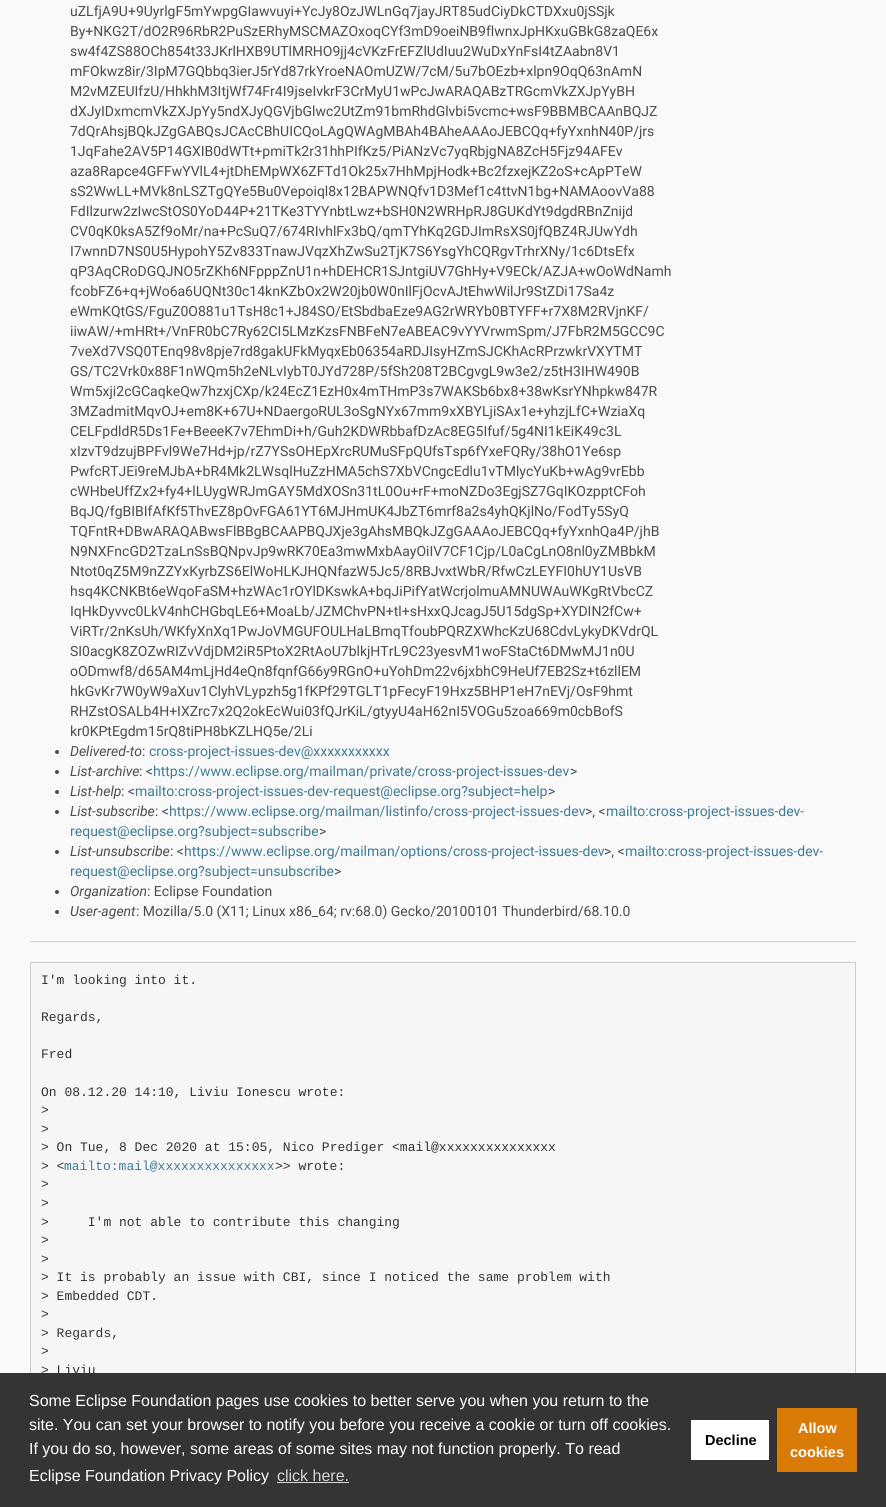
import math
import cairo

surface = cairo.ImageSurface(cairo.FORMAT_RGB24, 886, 1507)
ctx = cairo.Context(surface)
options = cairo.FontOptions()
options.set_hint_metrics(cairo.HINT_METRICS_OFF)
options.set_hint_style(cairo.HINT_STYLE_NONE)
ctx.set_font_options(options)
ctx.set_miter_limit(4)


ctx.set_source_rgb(0.976, 0.976, 0.976)
ctx.paint()
ctx.select_font_face("Roboto")
ctx.set_font_size(14)
ctx.set_source_rgb(0.298, 0.302, 0.306)
ctx.move_to(70, 16)
ctx.show_text("uZLfjA9U+9UyrlgF5mYwpgGIawvuyi+YcJy8OzJWLnGq7jayJRT85udCiyDkCTDXxu0jSSjk")
ctx.move_to(70, 36)
ctx.show_text("By+NKG2T/dO2R96RbR2PuSzERhyMSCMAZOxoqCYf3mD9oeiNB9flwnxJpHKxuGBkG8zaQE6x")
ctx.move_to(70, 56)
ctx.show_text("sw4f4ZS88OCh854t33JKrlHXB9UTlMRHO9jj4cVKzFrEFZlUdIuu2WuDxYnFsI4tZAabn8V1")
ctx.move_to(70, 76)
ctx.show_text("mFOkwz8ir/3IpM7GQbbq3ierJ5rYd87rkYroeNAOmUZW/7cM/5u7bOEzb+xlpn9OqQ63nAmN")
ctx.move_to(70, 96)
ctx.show_text("M2vMZEUIfzU/HhkhM3ItjWf74Fr4I9jseIvkrF3CrMyU1wPcJwARAQABzTRGcmVkZXJpYyBH")
ctx.move_to(70, 116)
ctx.show_text("dXJyIDxmcmVkZXJpYy5ndXJyQGVjbGlwc2UtZm91bmRhdGlvbi5vcmc+wsF9BBMBCAAnBQJZ")
ctx.move_to(70, 136)
ctx.show_text("7dQrAhsjBQkJZgGABQsJCAcCBhUICQoLAgQWAgMBAh4BAheAAAoJEBCQq+fyYxnhN40P/jrs")
ctx.move_to(70, 156)
ctx.show_text("1JqFahe2AV5P14GXIB0dWTt+pmiTk2r31hhPIfKz5/PiANzVc7yqRbjgNA8ZcH5Fjz94AFEv")
ctx.move_to(70, 176)
ctx.show_text("aza8Rapce4GFFwYVlL4+jtDhEMpWX6ZFTd1Ok25x7HhMpjHodk+Bc2fzxejKZ2oS+cApPTeW")
ctx.move_to(70, 196)
ctx.show_text("sS2WwLL+MVk8nLSZTgQYe5Bu0Vepoiql8x12BAPWNQfv1D3Mef1c4ttvN1bg+NAMAoovVa88")
ctx.move_to(70, 216)
ctx.show_text("FdIlzurw2zIwcStOS0YoD44P+21TKe3TYYnbtLwz+bSH0N2WRHpRJ8GUKdYt9dgdRBnZnijd")
ctx.move_to(70, 236)
ctx.show_text("CV0qK0ksA5Zf9oMr/na+PcSuQ7/674RIvhlFx3bQ/qmTYhKq2GDJImRsXS0jfQBZ4RJUwYdh")
ctx.move_to(70, 256)
ctx.show_text("I7wnnD7NS0U5HypohY5Zv833TnawJVqzXhZwSu2TjK7S6YsgYhCQRgvTrhrXNy/1c6DtsEfx")
ctx.move_to(70, 276)
ctx.show_text("qP3AqCRoDGQJNO5rZKh6NFpppZnU1n+hDEHCR1SJntgiUV7GhHy+V9ECk/AZJA+wOoWdNamh")
ctx.move_to(70, 296)
ctx.show_text("fcobFZ6+q+jWo6a6UQNt30c14knKZbOx2W20jb0W0nIlFjOcvAJtEhwWilJr9StZDi17Sa4z")
ctx.move_to(70, 316)
ctx.show_text("eWmKQtGS/FguZ0O881u1TsH8c1+J84SO/EtSbdbaEze9AG2rWRYb0BTYFF+r7X8M2RVjnKF/")
ctx.move_to(70, 336)
ctx.show_text("iiwAW/+mHRt+/VnFR0bC7Ry62CI5LMzKzsFNBFeN7eABEAC9vYYVrwmSpm/J7FbR2M5GCC9C")
ctx.move_to(70, 356)
ctx.show_text("7veXd7VSQ0TEnq98v8pje7rd8gakUFkMyqxEb06354aRDJIsyHZmSJCKhAcRPrzwkrVXYTMT")
ctx.move_to(70, 376)
ctx.show_text("GS/TC2Vrk0x88F1nWQm5h2eNLvIybT0JYd728P/5fSh208T2BCgvgL9w3e2/z5tH3IHW490B")
ctx.move_to(70, 396)
ctx.show_text("Wm5xji2cGCaqkeQw7hzxjCXp/k24EcZ1EzH0x4mTHmP3s7WAKSb6bx8+38wKsrYNhpkw847R")
ctx.move_to(70, 416)
ctx.show_text("3MZadmitMqvOJ+em8K+67U+NDaergoRUL3oSgNYx67mm9xXBYLjiSAx1e+yhzjLfC+WziaXq")
ctx.move_to(70, 436)
ctx.show_text("CELFpdldR5Ds1Fe+BeeeK7v7EhmDi+h/Guh2KDWRbbafDzAc8EG5Ifuf/5g4NI1kEiK49c3L")
ctx.move_to(70, 456)
ctx.show_text("xIzvT9dzujBPFvl9We7Hd+jp/rZ7YSsOHEpXrcRUMuSFpQUfsTsp6fYxeFQRy/38hO1Ye6sp")
ctx.move_to(70, 476)
ctx.show_text("PwfcRTJEi9reMJbA+bR4Mk2LWsqlHuZzHMA5chS7XbVCngcEdlu1vTMlycYuKb+wAg9vrEbb")
ctx.move_to(70, 496)
ctx.show_text("cWHbeUffZx2+fy4+lLUygWRJmGAY5MdXOSn31tL0Ou+rF+moNZDo3EgjSZ7GqIKOzpptCFoh")
ctx.move_to(70, 516)
ctx.show_text("BqJQ/fgBIBIfAfKf5ThvEZ8pOvFGA61YT6MJHmUK4JbZT6mrf8a2s4yhQKjlNo/FodTy5SyQ")
ctx.move_to(70, 536)
ctx.show_text("TQFntR+DBwARAQABwsFlBBgBCAAPBQJXje3gAhsMBQkJZgGAAAoJEBCQq+fyYxnhQa4P/jhB")
ctx.move_to(70, 556)
ctx.show_text("N9NXFncGD2TzaLnSsBQNpvJp9wRK70Ea3mwMxbAayOiIV7CF1Cjp/L0aCgLnO8nl0yZMBbkM")
ctx.move_to(70, 576)
ctx.show_text("Ntot0qZ5M9nZZYxKyrbZS6ElWoHLKJHQNfazW5Jc5/8RBJvxtWbR/RfwCzLEYFI0hUY1UsVB")
ctx.move_to(70, 596)
ctx.show_text("hsq4KCNKBt6eWqoFaSM+hzWAc1rOYlDKswkA+bqJiPifYatWcrjolmuAMNUWAuWKgRtVbcCZ")
ctx.move_to(70, 616)
ctx.show_text("IqHkDyvvc0LkV4nhCHGbqLE6+MoaLb/JZMChvPN+tl+sHxxQJcagJ5U15dgSp+XYDIN2fCw+")
ctx.move_to(70, 636)
ctx.show_text("ViRTr/2nKsUh/WKfyXnXq1PwJoVMGUFOULHaLBmqTfoubPQRZXWhcKzU68CdvLykyDKVdrQL")
ctx.move_to(70, 656)
ctx.show_text("SI0acgK8ZOZwRIZvVdjDM2iR5PtoX2RtAoU7blkjHTrL9C23yesvM1woFStaCt6DMwMJ1n0U")
ctx.move_to(70, 676)
ctx.show_text("oODmwf8/d65AM4mLjHd4eQn8fqnfG66y9RGnO+uYohDm22v6jxbhC9HeUf7EB2Sz+t6zllEM")
ctx.move_to(70, 696)
ctx.show_text("hkGvKr7W0yW9aXuv1ClyhVLypzh5g1fKPf29TGLT1pFecyF19Hxz5BHP1eH7nEVj/OsF9hmt")
ctx.move_to(70, 716)
ctx.show_text("RHZstOSALb4H+IXZrc7x2Q2okEcWui03fQJrKiL/gtyyU4aH62nI5VOGu5zoa669m0cbBofS")
ctx.move_to(70, 736)
ctx.show_text("kr0KPtEgdm15rQ8tiPH8bKZLHQ5e/2Li")
ctx.new_path()
ctx.arc(57, 752, 2, 0, 2 * math.pi)
ctx.fill()
ctx.select_font_face("Roboto", cairo.FONT_SLANT_ITALIC)
ctx.move_to(70, 756)
ctx.show_text("Delivered-to")
ctx.select_font_face("Roboto")
ctx.move_to(142, 756)
ctx.show_text(":")
ctx.set_source_rgb(0.247, 0.482, 0.588)
ctx.move_to(149, 756)
ctx.show_text("cross-project-issues-dev@xxxxxxxxxxx")
ctx.set_source_rgb(0.298, 0.302, 0.306)
ctx.new_path()
ctx.arc(57, 772, 2, 0, 2 * math.pi)
ctx.fill()
ctx.select_font_face("Roboto", cairo.FONT_SLANT_ITALIC)
ctx.move_to(70, 776)
ctx.show_text("List-archive")
ctx.select_font_face("Roboto")
ctx.move_to(139, 776)
ctx.show_text(": <")
ctx.set_source_rgb(0.247, 0.482, 0.588)
ctx.move_to(153, 776)
ctx.show_text("https://www.eclipse.org/mailman/private/cross-project-issues-dev")
ctx.set_source_rgb(0.298, 0.302, 0.306)
ctx.move_to(570, 776)
ctx.show_text(">")
ctx.new_path()
ctx.arc(57, 792, 2, 0, 2 * math.pi)
ctx.fill()
ctx.select_font_face("Roboto", cairo.FONT_SLANT_ITALIC)
ctx.move_to(70, 796)
ctx.show_text("List-help")
ctx.select_font_face("Roboto")
ctx.move_to(121, 796)
ctx.show_text(": <")
ctx.set_source_rgb(0.247, 0.482, 0.588)
ctx.move_to(135, 796)
ctx.show_text("mailto:cross-project-issues-dev-request@eclipse.org?subject=help")
ctx.set_source_rgb(0.298, 0.302, 0.306)
ctx.move_to(548, 796)
ctx.show_text(">")
ctx.new_path()
ctx.arc(57, 812, 2, 0, 2 * math.pi)
ctx.fill()
ctx.select_font_face("Roboto", cairo.FONT_SLANT_ITALIC)
ctx.move_to(70, 816)
ctx.show_text("List-subscribe")
ctx.select_font_face("Roboto")
ctx.move_to(155, 816)
ctx.show_text(": <")
ctx.set_source_rgb(0.247, 0.482, 0.588)
ctx.move_to(169, 816)
ctx.show_text("https://www.eclipse.org/mailman/listinfo/cross-project-issues-dev")
ctx.set_source_rgb(0.298, 0.302, 0.306)
ctx.move_to(585, 816)
ctx.show_text(">, <")
ctx.set_source_rgb(0.247, 0.482, 0.588)
ctx.move_to(606, 816)
ctx.show_text("mailto:cross-project-issues-dev-")
ctx.move_to(70, 836)
ctx.show_text("request@eclipse.org?subject=subscribe")
ctx.set_source_rgb(0.298, 0.302, 0.306)
ctx.move_to(319, 836)
ctx.show_text(">")
ctx.new_path()
ctx.arc(57, 852, 2, 0, 2 * math.pi)
ctx.fill()
ctx.select_font_face("Roboto", cairo.FONT_SLANT_ITALIC)
ctx.move_to(70, 856)
ctx.show_text("List-unsubscribe")
ctx.select_font_face("Roboto")
ctx.move_to(170, 856)
ctx.show_text(": <")
ctx.set_source_rgb(0.247, 0.482, 0.588)
ctx.move_to(184, 856)
ctx.show_text("https://www.eclipse.org/mailman/options/cross-project-issues-dev")
ctx.set_source_rgb(0.298, 0.302, 0.306)
ctx.move_to(604, 856)
ctx.show_text(">, <")
ctx.set_source_rgb(0.247, 0.482, 0.588)
ctx.move_to(625, 856)
ctx.show_text("mailto:cross-project-issues-dev-")
ctx.move_to(70, 876)
ctx.show_text("request@eclipse.org?subject=unsubscribe")
ctx.set_source_rgb(0.298, 0.302, 0.306)
ctx.move_to(334, 876)
ctx.show_text(">")
ctx.new_path()
ctx.arc(57, 892, 2, 0, 2 * math.pi)
ctx.fill()
ctx.select_font_face("Roboto", cairo.FONT_SLANT_ITALIC)
ctx.move_to(70, 896)
ctx.show_text("Organization")
ctx.select_font_face("Roboto")
ctx.move_to(147, 896)
ctx.show_text(": Eclipse Foundation")
ctx.new_path()
ctx.arc(57, 912, 2, 0, 2 * math.pi)
ctx.fill()
ctx.select_font_face("Roboto", cairo.FONT_SLANT_ITALIC)
ctx.move_to(70, 916)
ctx.show_text("User-agent")
ctx.select_font_face("Roboto")
ctx.move_to(136, 916)
ctx.show_text(": Mozilla/5.0 (X11; Linux x86_64; rv:68.0) Gecko/20100101 Thunderbird/68.10.0")
ctx.set_source_rgb(0.8, 0.8, 0.8)
ctx.rectangle(30, 941, 826, 1)
ctx.fill()
ctx.set_source_rgb(0.961, 0.961, 0.961)
ctx.rectangle(31, 963, 824, 410)
ctx.fill()
ctx.rectangle(30.5, 962.5, 825, 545)
ctx.set_source_rgb(0.8, 0.8, 0.8)
ctx.set_line_width(1)
ctx.stroke()
ctx.select_font_face("Liberation Mono")
ctx.set_font_size(13)
ctx.set_source_rgb(0.2, 0.2, 0.2)
ctx.move_to(41, 984)
ctx.show_text("I'm looking into it.")
ctx.move_to(41, 1021)
ctx.show_text("Regards,")
ctx.move_to(41, 1058)
ctx.show_text("Fred")
ctx.move_to(41, 1096)
ctx.show_text("On 08.12.20 14:10, Liviu Ionescu wrote:")
ctx.move_to(41, 1114)
ctx.show_text(">")
ctx.move_to(41, 1133)
ctx.show_text(">")
ctx.move_to(41, 1151)
ctx.show_text("> On Tue, 8 Dec 2020 at 15:05, Nico Prediger <mail@xxxxxxxxxxxxxxx")
ctx.move_to(41, 1170)
ctx.show_text("> <")
ctx.set_source_rgb(0.247, 0.482, 0.588)
ctx.move_to(64, 1170)
ctx.show_text("mailto:mail@xxxxxxxxxxxxxxx")
ctx.set_source_rgb(0.2, 0.2, 0.2)
ctx.move_to(275, 1170)
ctx.show_text(">> wrote:")
ctx.move_to(41, 1188)
ctx.show_text(">")
ctx.move_to(41, 1207)
ctx.show_text(">")
ctx.move_to(41, 1226)
ctx.show_text(">     I'm not able to contribute this changing")
ctx.move_to(41, 1244)
ctx.show_text(">")
ctx.move_to(41, 1263)
ctx.show_text(">")
ctx.move_to(41, 1281)
ctx.show_text("> It is probably an issue with CBI, since I noticed the same problem with")
ctx.move_to(41, 1300)
ctx.show_text("> Embedded CDT.")
ctx.move_to(41, 1318)
ctx.show_text(">")
ctx.move_to(41, 1337)
ctx.show_text("> Regards,")
ctx.move_to(41, 1355)
ctx.show_text(">")
ctx.move_to(41, 1374)
ctx.show_text("> Liviu")
ctx.set_source_rgb(0.208, 0.204, 0.204)
ctx.rectangle(0, 1373, 886, 134)
ctx.fill()
ctx.select_font_face("Liberation Sans")
ctx.set_font_size(16)
ctx.set_source_rgb(1, 1, 1)
ctx.move_to(29, 1406)
ctx.show_text("Some Eclipse Foundation pages use cookies to better serve you when you return to the")
ctx.move_to(29, 1430)
ctx.show_text("site. You can set your browser to notify you before you receive a cookie or turn off cookies.")
ctx.move_to(29, 1454)
ctx.show_text("If you do so, however, some areas of some sites may not function properly. To read")
ctx.move_to(29, 1481)
ctx.show_text("Eclipse Foundation Privacy Policy")
ctx.set_source_rgb(0.843, 0.839, 0.839)
ctx.move_to(277, 1481)
ctx.show_text("click here.")
ctx.rectangle(277, 1482, 72, 1)
ctx.fill()
ctx.set_source_rgb(1, 1, 1)
ctx.rectangle(691, 1420, 78, 40)
ctx.fill()
ctx.select_font_face("Liberation Sans", cairo.FONT_SLANT_NORMAL, cairo.FONT_WEIGHT_BOLD)
ctx.set_font_size(14.5)
ctx.set_source_rgb(0, 0, 0)
ctx.move_to(705, 1445)
ctx.show_text("Decline")
ctx.set_source_rgb(0.855, 0.478, 0.031)
ctx.rectangle(777, 1408, 80, 64)
ctx.fill()
ctx.set_source_rgb(1, 1, 1)
ctx.move_to(798, 1433)
ctx.show_text("Allow")
ctx.move_to(790, 1457)
ctx.show_text("cookies")
surface.write_to_png("page.png")
